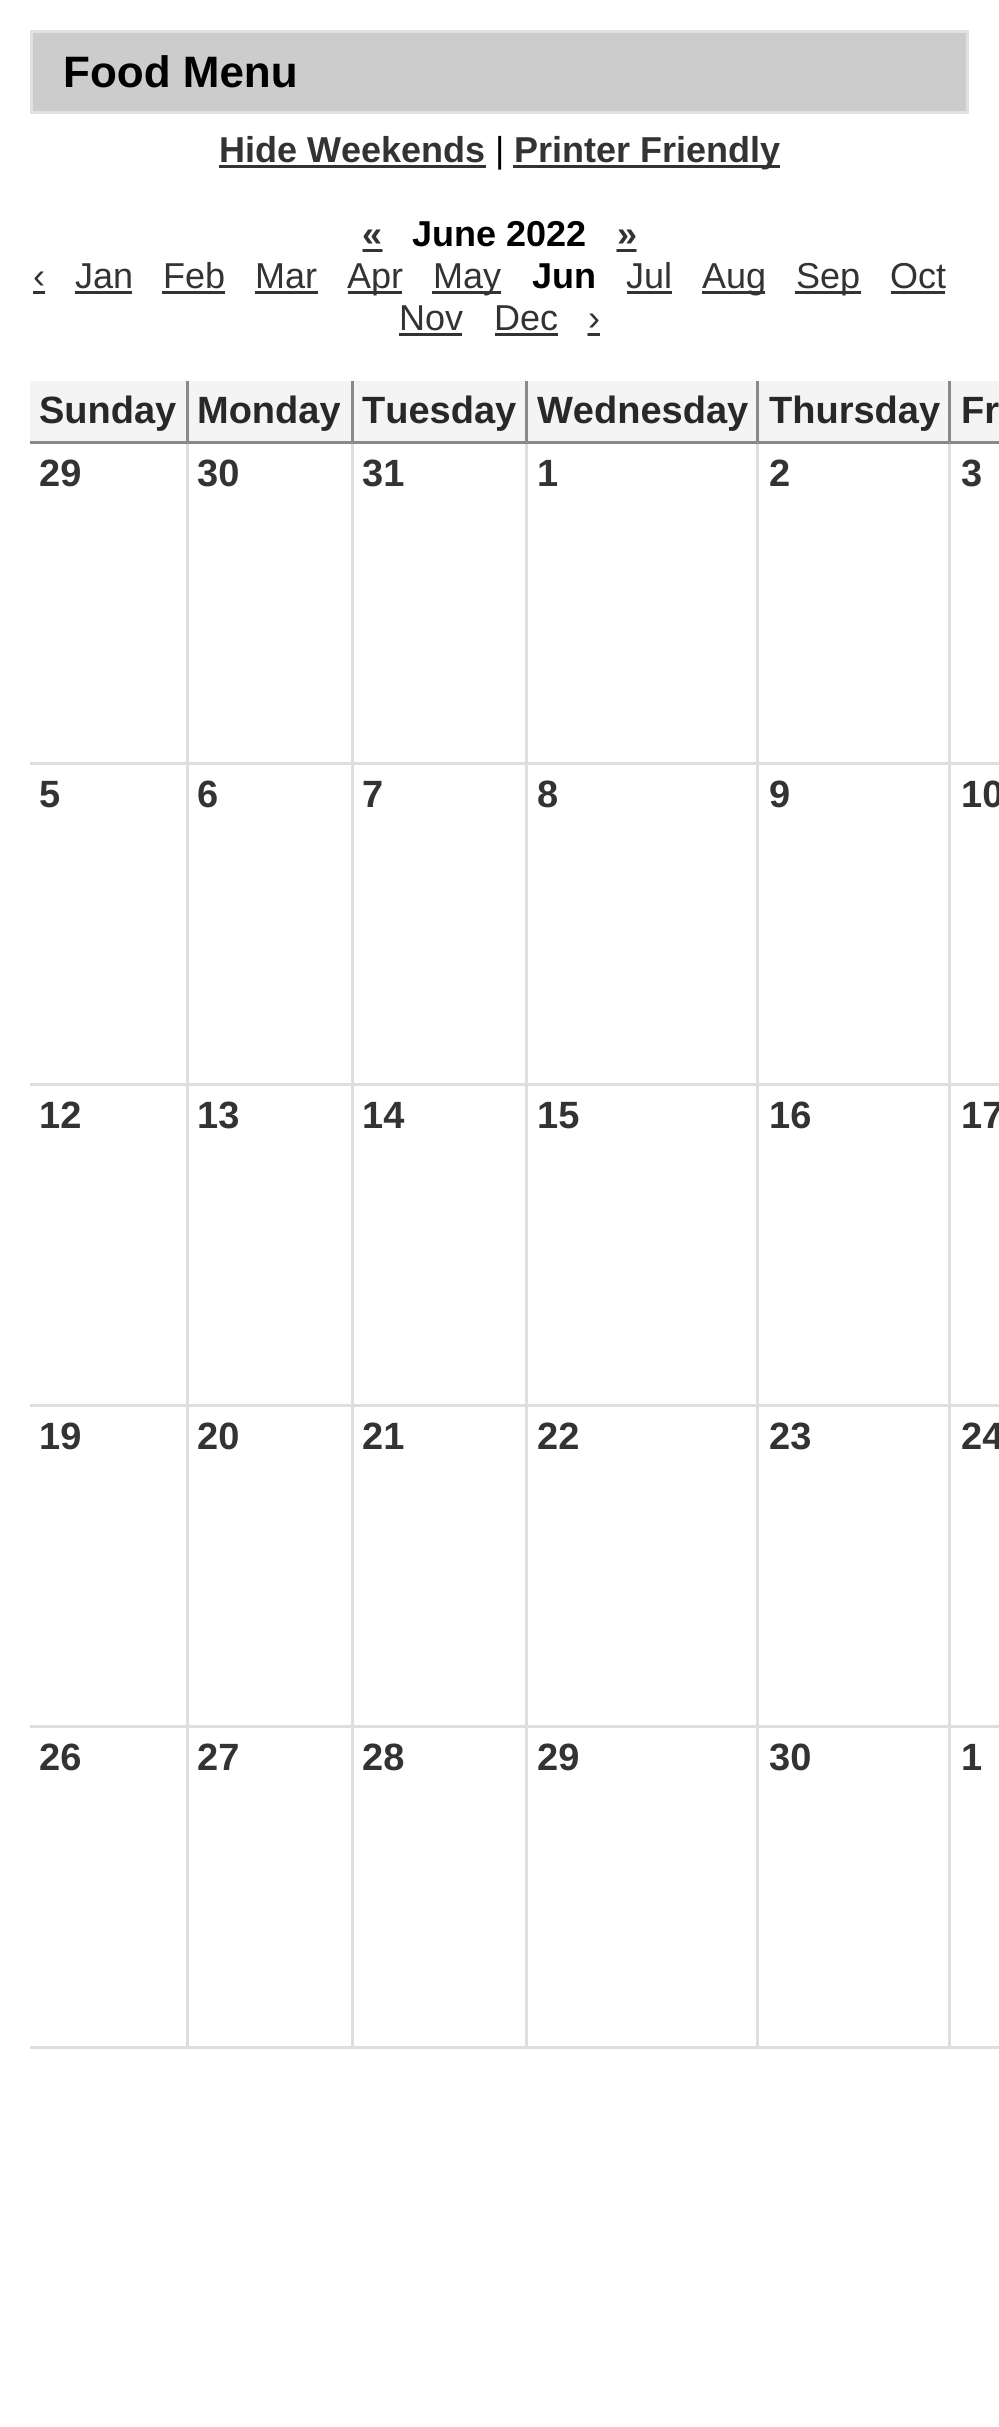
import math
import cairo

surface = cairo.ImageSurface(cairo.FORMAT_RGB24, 999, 2427)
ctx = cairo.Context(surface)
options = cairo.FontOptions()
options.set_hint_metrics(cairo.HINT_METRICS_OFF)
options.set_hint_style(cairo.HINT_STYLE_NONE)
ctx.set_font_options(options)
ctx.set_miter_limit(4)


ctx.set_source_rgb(1, 1, 1)
ctx.paint()
ctx.set_source_rgb(0.8, 0.8, 0.8)
ctx.rectangle(31.5, 31.5, 936, 81)
ctx.fill_preserve()
ctx.set_source_rgb(0.882, 0.882, 0.882)
ctx.set_line_width(3)
ctx.stroke()
ctx.select_font_face("Liberation Sans", cairo.FONT_SLANT_NORMAL, cairo.FONT_WEIGHT_BOLD)
ctx.set_font_size(44)
ctx.set_source_rgb(0, 0, 0)
ctx.move_to(63, 87)
ctx.show_text("Food Menu")
ctx.set_font_size(36)
ctx.set_source_rgb(0.2, 0.2, 0.2)
ctx.move_to(219, 162)
ctx.show_text("Hide Weekends")
ctx.rectangle(219, 165, 267, 3)
ctx.fill()
ctx.select_font_face("Liberation Sans")
ctx.set_source_rgb(0, 0, 0)
ctx.move_to(495, 162)
ctx.show_text("|")
ctx.set_source_rgb(0.2, 0.2, 0.2)
ctx.rectangle(513, 165, 267, 3)
ctx.fill()
ctx.select_font_face("Liberation Sans", cairo.FONT_SLANT_NORMAL, cairo.FONT_WEIGHT_BOLD)
ctx.move_to(514, 162)
ctx.show_text("Printer Friendly")
ctx.move_to(362, 246)
ctx.show_text("«")
ctx.new_path()
ctx.move_to(362.5, 250.5)
ctx.line_to(365.5, 250.5)
ctx.move_to(368.5, 250.5)
ctx.line_to(371.5, 250.5)
ctx.move_to(374.5, 250.5)
ctx.line_to(377.5, 250.5)
ctx.move_to(380.5, 250.5)
ctx.line_to(382.5, 250.5)
ctx.stroke()
ctx.rectangle(363, 249, 18, 3)
ctx.fill()
ctx.set_source_rgb(0, 0, 0)
ctx.move_to(412, 246)
ctx.show_text("June 2022")
ctx.set_source_rgb(0.2, 0.2, 0.2)
ctx.move_to(617, 246)
ctx.show_text("»")
ctx.new_path()
ctx.move_to(616.5, 250.5)
ctx.line_to(619.5, 250.5)
ctx.move_to(622.5, 250.5)
ctx.line_to(625.5, 250.5)
ctx.move_to(628.5, 250.5)
ctx.line_to(631.5, 250.5)
ctx.move_to(634.5, 250.5)
ctx.line_to(636.5, 250.5)
ctx.stroke()
ctx.rectangle(618, 249, 18, 3)
ctx.fill()
ctx.select_font_face("Liberation Sans")
ctx.move_to(33, 288)
ctx.show_text("‹")
ctx.rectangle(33, 291, 12, 3)
ctx.fill()
ctx.move_to(75, 288)
ctx.show_text("Jan")
ctx.rectangle(75, 291, 57, 3)
ctx.fill()
ctx.move_to(163, 288)
ctx.show_text("Feb")
ctx.rectangle(162, 291, 63, 3)
ctx.fill()
ctx.move_to(255, 288)
ctx.show_text("Mar")
ctx.rectangle(255, 291, 63, 3)
ctx.fill()
ctx.rectangle(348, 291, 54, 3)
ctx.fill()
ctx.move_to(347, 288)
ctx.show_text("Apr")
ctx.rectangle(432, 291, 69, 3)
ctx.fill()
ctx.move_to(433, 288)
ctx.show_text("May")
ctx.select_font_face("Liberation Sans", cairo.FONT_SLANT_NORMAL, cairo.FONT_WEIGHT_BOLD)
ctx.set_source_rgb(0, 0, 0)
ctx.move_to(532, 288)
ctx.show_text("Jun")
ctx.select_font_face("Liberation Sans")
ctx.set_source_rgb(0.2, 0.2, 0.2)
ctx.move_to(626, 288)
ctx.show_text("Jul")
ctx.rectangle(627, 291, 45, 3)
ctx.fill()
ctx.rectangle(702, 291, 63, 3)
ctx.fill()
ctx.move_to(702, 288)
ctx.show_text("Aug")
ctx.rectangle(795, 291, 66, 3)
ctx.fill()
ctx.move_to(796, 288)
ctx.show_text("Sep")
ctx.move_to(890, 288)
ctx.show_text("Oct")
ctx.rectangle(891, 291, 54, 3)
ctx.fill()
ctx.move_to(399, 330)
ctx.show_text("Nov")
ctx.rectangle(399, 333, 63, 3)
ctx.fill()
ctx.move_to(494, 330)
ctx.show_text("Dec")
ctx.rectangle(495, 333, 63, 3)
ctx.fill()
ctx.move_to(588, 330)
ctx.show_text("›")
ctx.new_path()
ctx.move_to(587.5, 334.5)
ctx.line_to(590.5, 334.5)
ctx.move_to(593.5, 334.5)
ctx.line_to(596.5, 334.5)
ctx.stroke()
ctx.rectangle(588, 333, 12, 3)
ctx.fill()
ctx.set_source_rgb(0.957, 0.957, 0.957)
ctx.rectangle(30, 381, 921, 63)
ctx.fill()
ctx.set_source_rgb(0.537, 0.537, 0.537)
ctx.new_path()
ctx.move_to(189, 381)
ctx.line_to(189, 444)
ctx.line_to(186, 441)
ctx.line_to(186, 381)
ctx.close_path()
ctx.fill()
ctx.set_source_rgba(0, 0, 0, 0.44)
ctx.new_path()
ctx.move_to(189, 444)
ctx.line_to(30, 444)
ctx.line_to(30, 441)
ctx.line_to(186, 441)
ctx.close_path()
ctx.fill()
ctx.select_font_face("Liberation Sans", cairo.FONT_SLANT_NORMAL, cairo.FONT_WEIGHT_BOLD)
ctx.set_font_size(38)
ctx.set_source_rgb(0.157, 0.157, 0.157)
ctx.move_to(39, 423)
ctx.show_text("Sunday")
ctx.set_source_rgb(0.537, 0.537, 0.537)
ctx.new_path()
ctx.move_to(354, 381)
ctx.line_to(354, 444)
ctx.line_to(351, 441)
ctx.line_to(351, 381)
ctx.close_path()
ctx.fill()
ctx.set_source_rgba(0, 0, 0, 0.44)
ctx.new_path()
ctx.move_to(354, 444)
ctx.line_to(189, 444)
ctx.line_to(189, 441)
ctx.line_to(351, 441)
ctx.close_path()
ctx.fill()
ctx.set_source_rgb(0.157, 0.157, 0.157)
ctx.move_to(197, 423)
ctx.show_text("Monday")
ctx.set_source_rgb(0.537, 0.537, 0.537)
ctx.new_path()
ctx.move_to(528, 381)
ctx.line_to(528, 444)
ctx.line_to(525, 441)
ctx.line_to(525, 381)
ctx.close_path()
ctx.fill()
ctx.set_source_rgba(0, 0, 0, 0.44)
ctx.new_path()
ctx.move_to(528, 444)
ctx.line_to(354, 444)
ctx.line_to(354, 441)
ctx.line_to(525, 441)
ctx.close_path()
ctx.fill()
ctx.set_source_rgb(0.157, 0.157, 0.157)
ctx.move_to(362, 423)
ctx.show_text("Tuesday")
ctx.set_source_rgb(0.537, 0.537, 0.537)
ctx.new_path()
ctx.move_to(759, 381)
ctx.line_to(759, 444)
ctx.line_to(756, 441)
ctx.line_to(756, 381)
ctx.close_path()
ctx.fill()
ctx.set_source_rgba(0, 0, 0, 0.44)
ctx.new_path()
ctx.move_to(759, 444)
ctx.line_to(528, 444)
ctx.line_to(528, 441)
ctx.line_to(756, 441)
ctx.close_path()
ctx.fill()
ctx.set_source_rgb(0.157, 0.157, 0.157)
ctx.move_to(537, 423)
ctx.show_text("Wednesday")
ctx.set_source_rgb(0.537, 0.537, 0.537)
ctx.new_path()
ctx.move_to(951, 381)
ctx.line_to(951, 444)
ctx.line_to(948, 441)
ctx.line_to(948, 381)
ctx.close_path()
ctx.fill()
ctx.set_source_rgba(0, 0, 0, 0.44)
ctx.new_path()
ctx.move_to(951, 444)
ctx.line_to(759, 444)
ctx.line_to(759, 441)
ctx.line_to(948, 441)
ctx.close_path()
ctx.fill()
ctx.set_source_rgb(0.157, 0.157, 0.157)
ctx.move_to(769, 423)
ctx.show_text("Thursday")
ctx.set_source_rgb(0.957, 0.957, 0.957)
ctx.rectangle(951, 381, 48, 60)
ctx.fill()
ctx.set_source_rgb(0.537, 0.537, 0.537)
ctx.new_path()
ctx.move_to(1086, 444)
ctx.line_to(951, 444)
ctx.line_to(951, 441)
ctx.line_to(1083, 441)
ctx.close_path()
ctx.fill()
ctx.set_source_rgb(0.157, 0.157, 0.157)
ctx.move_to(961, 423)
ctx.show_text("Fr")
ctx.set_source_rgb(0.871, 0.871, 0.871)
ctx.new_path()
ctx.move_to(189, 444)
ctx.line_to(189, 765)
ctx.line_to(186, 762)
ctx.line_to(186, 444)
ctx.close_path()
ctx.fill()
ctx.set_source_rgba(0, 0, 0, 0.13)
ctx.new_path()
ctx.move_to(189, 765)
ctx.line_to(30, 765)
ctx.line_to(30, 762)
ctx.line_to(186, 762)
ctx.close_path()
ctx.fill()
ctx.set_source_rgb(0.2, 0.2, 0.2)
ctx.move_to(39, 486)
ctx.show_text("29")
ctx.set_source_rgb(0.871, 0.871, 0.871)
ctx.new_path()
ctx.move_to(354, 444)
ctx.line_to(354, 765)
ctx.line_to(351, 762)
ctx.line_to(351, 444)
ctx.close_path()
ctx.fill()
ctx.set_source_rgba(0, 0, 0, 0.13)
ctx.new_path()
ctx.move_to(354, 765)
ctx.line_to(189, 765)
ctx.line_to(189, 762)
ctx.line_to(351, 762)
ctx.close_path()
ctx.fill()
ctx.set_source_rgb(0.2, 0.2, 0.2)
ctx.move_to(197, 486)
ctx.show_text("30")
ctx.set_source_rgb(0.871, 0.871, 0.871)
ctx.new_path()
ctx.move_to(528, 444)
ctx.line_to(528, 765)
ctx.line_to(525, 762)
ctx.line_to(525, 444)
ctx.close_path()
ctx.fill()
ctx.set_source_rgba(0, 0, 0, 0.13)
ctx.new_path()
ctx.move_to(528, 765)
ctx.line_to(354, 765)
ctx.line_to(354, 762)
ctx.line_to(525, 762)
ctx.close_path()
ctx.fill()
ctx.set_source_rgb(0.2, 0.2, 0.2)
ctx.move_to(362, 486)
ctx.show_text("31")
ctx.set_source_rgb(0.871, 0.871, 0.871)
ctx.new_path()
ctx.move_to(759, 444)
ctx.line_to(759, 765)
ctx.line_to(756, 762)
ctx.line_to(756, 444)
ctx.close_path()
ctx.fill()
ctx.set_source_rgba(0, 0, 0, 0.13)
ctx.new_path()
ctx.move_to(759, 765)
ctx.line_to(528, 765)
ctx.line_to(528, 762)
ctx.line_to(756, 762)
ctx.close_path()
ctx.fill()
ctx.set_source_rgb(0.2, 0.2, 0.2)
ctx.move_to(537, 486)
ctx.show_text("1")
ctx.set_source_rgb(0.871, 0.871, 0.871)
ctx.new_path()
ctx.move_to(951, 444)
ctx.line_to(951, 765)
ctx.line_to(948, 762)
ctx.line_to(948, 444)
ctx.close_path()
ctx.fill()
ctx.set_source_rgba(0, 0, 0, 0.13)
ctx.new_path()
ctx.move_to(951, 765)
ctx.line_to(759, 765)
ctx.line_to(759, 762)
ctx.line_to(948, 762)
ctx.close_path()
ctx.fill()
ctx.set_source_rgb(0.2, 0.2, 0.2)
ctx.move_to(769, 486)
ctx.show_text("2")
ctx.set_source_rgb(0.871, 0.871, 0.871)
ctx.new_path()
ctx.move_to(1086, 765)
ctx.line_to(951, 765)
ctx.line_to(951, 762)
ctx.line_to(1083, 762)
ctx.close_path()
ctx.fill()
ctx.set_source_rgb(0.2, 0.2, 0.2)
ctx.move_to(961, 486)
ctx.show_text("3")
ctx.set_source_rgb(0.871, 0.871, 0.871)
ctx.new_path()
ctx.move_to(189, 765)
ctx.line_to(189, 1086)
ctx.line_to(186, 1083)
ctx.line_to(186, 765)
ctx.close_path()
ctx.fill()
ctx.set_source_rgba(0, 0, 0, 0.13)
ctx.new_path()
ctx.move_to(189, 1086)
ctx.line_to(30, 1086)
ctx.line_to(30, 1083)
ctx.line_to(186, 1083)
ctx.close_path()
ctx.fill()
ctx.set_source_rgb(0.2, 0.2, 0.2)
ctx.move_to(39, 807)
ctx.show_text("5")
ctx.set_source_rgb(0.871, 0.871, 0.871)
ctx.new_path()
ctx.move_to(354, 765)
ctx.line_to(354, 1086)
ctx.line_to(351, 1083)
ctx.line_to(351, 765)
ctx.close_path()
ctx.fill()
ctx.set_source_rgba(0, 0, 0, 0.13)
ctx.new_path()
ctx.move_to(354, 1086)
ctx.line_to(189, 1086)
ctx.line_to(189, 1083)
ctx.line_to(351, 1083)
ctx.close_path()
ctx.fill()
ctx.set_source_rgb(0.2, 0.2, 0.2)
ctx.move_to(197, 807)
ctx.show_text("6")
ctx.set_source_rgb(0.871, 0.871, 0.871)
ctx.new_path()
ctx.move_to(528, 765)
ctx.line_to(528, 1086)
ctx.line_to(525, 1083)
ctx.line_to(525, 765)
ctx.close_path()
ctx.fill()
ctx.set_source_rgba(0, 0, 0, 0.13)
ctx.new_path()
ctx.move_to(528, 1086)
ctx.line_to(354, 1086)
ctx.line_to(354, 1083)
ctx.line_to(525, 1083)
ctx.close_path()
ctx.fill()
ctx.set_source_rgb(0.2, 0.2, 0.2)
ctx.move_to(362, 807)
ctx.show_text("7")
ctx.set_source_rgb(0.871, 0.871, 0.871)
ctx.new_path()
ctx.move_to(759, 765)
ctx.line_to(759, 1086)
ctx.line_to(756, 1083)
ctx.line_to(756, 765)
ctx.close_path()
ctx.fill()
ctx.set_source_rgba(0, 0, 0, 0.13)
ctx.new_path()
ctx.move_to(759, 1086)
ctx.line_to(528, 1086)
ctx.line_to(528, 1083)
ctx.line_to(756, 1083)
ctx.close_path()
ctx.fill()
ctx.set_source_rgb(0.2, 0.2, 0.2)
ctx.move_to(537, 807)
ctx.show_text("8")
ctx.set_source_rgb(0.871, 0.871, 0.871)
ctx.new_path()
ctx.move_to(951, 765)
ctx.line_to(951, 1086)
ctx.line_to(948, 1083)
ctx.line_to(948, 765)
ctx.close_path()
ctx.fill()
ctx.set_source_rgba(0, 0, 0, 0.13)
ctx.new_path()
ctx.move_to(951, 1086)
ctx.line_to(759, 1086)
ctx.line_to(759, 1083)
ctx.line_to(948, 1083)
ctx.close_path()
ctx.fill()
ctx.set_source_rgb(0.2, 0.2, 0.2)
ctx.move_to(769, 807)
ctx.show_text("9")
ctx.set_source_rgb(0.871, 0.871, 0.871)
ctx.new_path()
ctx.move_to(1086, 1086)
ctx.line_to(951, 1086)
ctx.line_to(951, 1083)
ctx.line_to(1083, 1083)
ctx.close_path()
ctx.fill()
ctx.set_source_rgb(0.2, 0.2, 0.2)
ctx.move_to(961, 807)
ctx.show_text("10")
ctx.set_source_rgb(0.871, 0.871, 0.871)
ctx.new_path()
ctx.move_to(189, 1086)
ctx.line_to(189, 1407)
ctx.line_to(186, 1404)
ctx.line_to(186, 1086)
ctx.close_path()
ctx.fill()
ctx.set_source_rgba(0, 0, 0, 0.13)
ctx.new_path()
ctx.move_to(189, 1407)
ctx.line_to(30, 1407)
ctx.line_to(30, 1404)
ctx.line_to(186, 1404)
ctx.close_path()
ctx.fill()
ctx.set_source_rgb(0.2, 0.2, 0.2)
ctx.move_to(39, 1128)
ctx.show_text("12")
ctx.set_source_rgb(0.871, 0.871, 0.871)
ctx.new_path()
ctx.move_to(354, 1086)
ctx.line_to(354, 1407)
ctx.line_to(351, 1404)
ctx.line_to(351, 1086)
ctx.close_path()
ctx.fill()
ctx.set_source_rgba(0, 0, 0, 0.13)
ctx.new_path()
ctx.move_to(354, 1407)
ctx.line_to(189, 1407)
ctx.line_to(189, 1404)
ctx.line_to(351, 1404)
ctx.close_path()
ctx.fill()
ctx.set_source_rgb(0.2, 0.2, 0.2)
ctx.move_to(197, 1128)
ctx.show_text("13")
ctx.set_source_rgb(0.871, 0.871, 0.871)
ctx.new_path()
ctx.move_to(528, 1086)
ctx.line_to(528, 1407)
ctx.line_to(525, 1404)
ctx.line_to(525, 1086)
ctx.close_path()
ctx.fill()
ctx.set_source_rgba(0, 0, 0, 0.13)
ctx.new_path()
ctx.move_to(528, 1407)
ctx.line_to(354, 1407)
ctx.line_to(354, 1404)
ctx.line_to(525, 1404)
ctx.close_path()
ctx.fill()
ctx.set_source_rgb(0.2, 0.2, 0.2)
ctx.move_to(362, 1128)
ctx.show_text("14")
ctx.set_source_rgb(0.871, 0.871, 0.871)
ctx.new_path()
ctx.move_to(759, 1086)
ctx.line_to(759, 1407)
ctx.line_to(756, 1404)
ctx.line_to(756, 1086)
ctx.close_path()
ctx.fill()
ctx.set_source_rgba(0, 0, 0, 0.13)
ctx.new_path()
ctx.move_to(759, 1407)
ctx.line_to(528, 1407)
ctx.line_to(528, 1404)
ctx.line_to(756, 1404)
ctx.close_path()
ctx.fill()
ctx.set_source_rgb(0.2, 0.2, 0.2)
ctx.move_to(537, 1128)
ctx.show_text("15")
ctx.set_source_rgb(0.871, 0.871, 0.871)
ctx.new_path()
ctx.move_to(951, 1086)
ctx.line_to(951, 1407)
ctx.line_to(948, 1404)
ctx.line_to(948, 1086)
ctx.close_path()
ctx.fill()
ctx.set_source_rgba(0, 0, 0, 0.13)
ctx.new_path()
ctx.move_to(951, 1407)
ctx.line_to(759, 1407)
ctx.line_to(759, 1404)
ctx.line_to(948, 1404)
ctx.close_path()
ctx.fill()
ctx.set_source_rgb(0.2, 0.2, 0.2)
ctx.move_to(769, 1128)
ctx.show_text("16")
ctx.set_source_rgb(0.871, 0.871, 0.871)
ctx.new_path()
ctx.move_to(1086, 1407)
ctx.line_to(951, 1407)
ctx.line_to(951, 1404)
ctx.line_to(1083, 1404)
ctx.close_path()
ctx.fill()
ctx.set_source_rgb(0.2, 0.2, 0.2)
ctx.move_to(961, 1128)
ctx.show_text("17")
ctx.set_source_rgb(0.871, 0.871, 0.871)
ctx.new_path()
ctx.move_to(189, 1407)
ctx.line_to(189, 1728)
ctx.line_to(186, 1725)
ctx.line_to(186, 1407)
ctx.close_path()
ctx.fill()
ctx.set_source_rgba(0, 0, 0, 0.13)
ctx.new_path()
ctx.move_to(189, 1728)
ctx.line_to(30, 1728)
ctx.line_to(30, 1725)
ctx.line_to(186, 1725)
ctx.close_path()
ctx.fill()
ctx.set_source_rgb(0.2, 0.2, 0.2)
ctx.move_to(39, 1449)
ctx.show_text("19")
ctx.set_source_rgb(0.871, 0.871, 0.871)
ctx.new_path()
ctx.move_to(354, 1407)
ctx.line_to(354, 1728)
ctx.line_to(351, 1725)
ctx.line_to(351, 1407)
ctx.close_path()
ctx.fill()
ctx.set_source_rgba(0, 0, 0, 0.13)
ctx.new_path()
ctx.move_to(354, 1728)
ctx.line_to(189, 1728)
ctx.line_to(189, 1725)
ctx.line_to(351, 1725)
ctx.close_path()
ctx.fill()
ctx.set_source_rgb(0.2, 0.2, 0.2)
ctx.move_to(197, 1449)
ctx.show_text("20")
ctx.set_source_rgb(0.871, 0.871, 0.871)
ctx.new_path()
ctx.move_to(528, 1407)
ctx.line_to(528, 1728)
ctx.line_to(525, 1725)
ctx.line_to(525, 1407)
ctx.close_path()
ctx.fill()
ctx.set_source_rgba(0, 0, 0, 0.13)
ctx.new_path()
ctx.move_to(528, 1728)
ctx.line_to(354, 1728)
ctx.line_to(354, 1725)
ctx.line_to(525, 1725)
ctx.close_path()
ctx.fill()
ctx.set_source_rgb(0.2, 0.2, 0.2)
ctx.move_to(362, 1449)
ctx.show_text("21")
ctx.set_source_rgb(0.871, 0.871, 0.871)
ctx.new_path()
ctx.move_to(759, 1407)
ctx.line_to(759, 1728)
ctx.line_to(756, 1725)
ctx.line_to(756, 1407)
ctx.close_path()
ctx.fill()
ctx.set_source_rgba(0, 0, 0, 0.13)
ctx.new_path()
ctx.move_to(759, 1728)
ctx.line_to(528, 1728)
ctx.line_to(528, 1725)
ctx.line_to(756, 1725)
ctx.close_path()
ctx.fill()
ctx.set_source_rgb(0.2, 0.2, 0.2)
ctx.move_to(537, 1449)
ctx.show_text("22")
ctx.set_source_rgb(0.871, 0.871, 0.871)
ctx.new_path()
ctx.move_to(951, 1407)
ctx.line_to(951, 1728)
ctx.line_to(948, 1725)
ctx.line_to(948, 1407)
ctx.close_path()
ctx.fill()
ctx.set_source_rgba(0, 0, 0, 0.13)
ctx.new_path()
ctx.move_to(951, 1728)
ctx.line_to(759, 1728)
ctx.line_to(759, 1725)
ctx.line_to(948, 1725)
ctx.close_path()
ctx.fill()
ctx.set_source_rgb(0.2, 0.2, 0.2)
ctx.move_to(769, 1449)
ctx.show_text("23")
ctx.set_source_rgb(0.871, 0.871, 0.871)
ctx.new_path()
ctx.move_to(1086, 1728)
ctx.line_to(951, 1728)
ctx.line_to(951, 1725)
ctx.line_to(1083, 1725)
ctx.close_path()
ctx.fill()
ctx.set_source_rgb(0.2, 0.2, 0.2)
ctx.move_to(961, 1449)
ctx.show_text("24")
ctx.set_source_rgb(0.871, 0.871, 0.871)
ctx.new_path()
ctx.move_to(189, 1728)
ctx.line_to(189, 2049)
ctx.line_to(186, 2046)
ctx.line_to(186, 1728)
ctx.close_path()
ctx.fill()
ctx.set_source_rgba(0, 0, 0, 0.13)
ctx.new_path()
ctx.move_to(189, 2049)
ctx.line_to(30, 2049)
ctx.line_to(30, 2046)
ctx.line_to(186, 2046)
ctx.close_path()
ctx.fill()
ctx.set_source_rgb(0.2, 0.2, 0.2)
ctx.move_to(39, 1770)
ctx.show_text("26")
ctx.set_source_rgb(0.871, 0.871, 0.871)
ctx.new_path()
ctx.move_to(354, 1728)
ctx.line_to(354, 2049)
ctx.line_to(351, 2046)
ctx.line_to(351, 1728)
ctx.close_path()
ctx.fill()
ctx.set_source_rgba(0, 0, 0, 0.13)
ctx.new_path()
ctx.move_to(354, 2049)
ctx.line_to(189, 2049)
ctx.line_to(189, 2046)
ctx.line_to(351, 2046)
ctx.close_path()
ctx.fill()
ctx.set_source_rgb(0.2, 0.2, 0.2)
ctx.move_to(197, 1770)
ctx.show_text("27")
ctx.set_source_rgb(0.871, 0.871, 0.871)
ctx.new_path()
ctx.move_to(528, 1728)
ctx.line_to(528, 2049)
ctx.line_to(525, 2046)
ctx.line_to(525, 1728)
ctx.close_path()
ctx.fill()
ctx.set_source_rgba(0, 0, 0, 0.13)
ctx.new_path()
ctx.move_to(528, 2049)
ctx.line_to(354, 2049)
ctx.line_to(354, 2046)
ctx.line_to(525, 2046)
ctx.close_path()
ctx.fill()
ctx.set_source_rgb(0.2, 0.2, 0.2)
ctx.move_to(362, 1770)
ctx.show_text("28")
ctx.set_source_rgb(0.871, 0.871, 0.871)
ctx.new_path()
ctx.move_to(759, 1728)
ctx.line_to(759, 2049)
ctx.line_to(756, 2046)
ctx.line_to(756, 1728)
ctx.close_path()
ctx.fill()
ctx.set_source_rgba(0, 0, 0, 0.13)
ctx.new_path()
ctx.move_to(759, 2049)
ctx.line_to(528, 2049)
ctx.line_to(528, 2046)
ctx.line_to(756, 2046)
ctx.close_path()
ctx.fill()
ctx.set_source_rgb(0.2, 0.2, 0.2)
ctx.move_to(537, 1770)
ctx.show_text("29")
ctx.set_source_rgb(0.871, 0.871, 0.871)
ctx.new_path()
ctx.move_to(951, 1728)
ctx.line_to(951, 2049)
ctx.line_to(948, 2046)
ctx.line_to(948, 1728)
ctx.close_path()
ctx.fill()
ctx.set_source_rgba(0, 0, 0, 0.13)
ctx.new_path()
ctx.move_to(951, 2049)
ctx.line_to(759, 2049)
ctx.line_to(759, 2046)
ctx.line_to(948, 2046)
ctx.close_path()
ctx.fill()
ctx.set_source_rgb(0.2, 0.2, 0.2)
ctx.move_to(769, 1770)
ctx.show_text("30")
ctx.set_source_rgb(0.871, 0.871, 0.871)
ctx.new_path()
ctx.move_to(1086, 2049)
ctx.line_to(951, 2049)
ctx.line_to(951, 2046)
ctx.line_to(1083, 2046)
ctx.close_path()
ctx.fill()
ctx.set_source_rgb(0.2, 0.2, 0.2)
ctx.move_to(961, 1770)
ctx.show_text("1")
surface.write_to_png("page.png")
